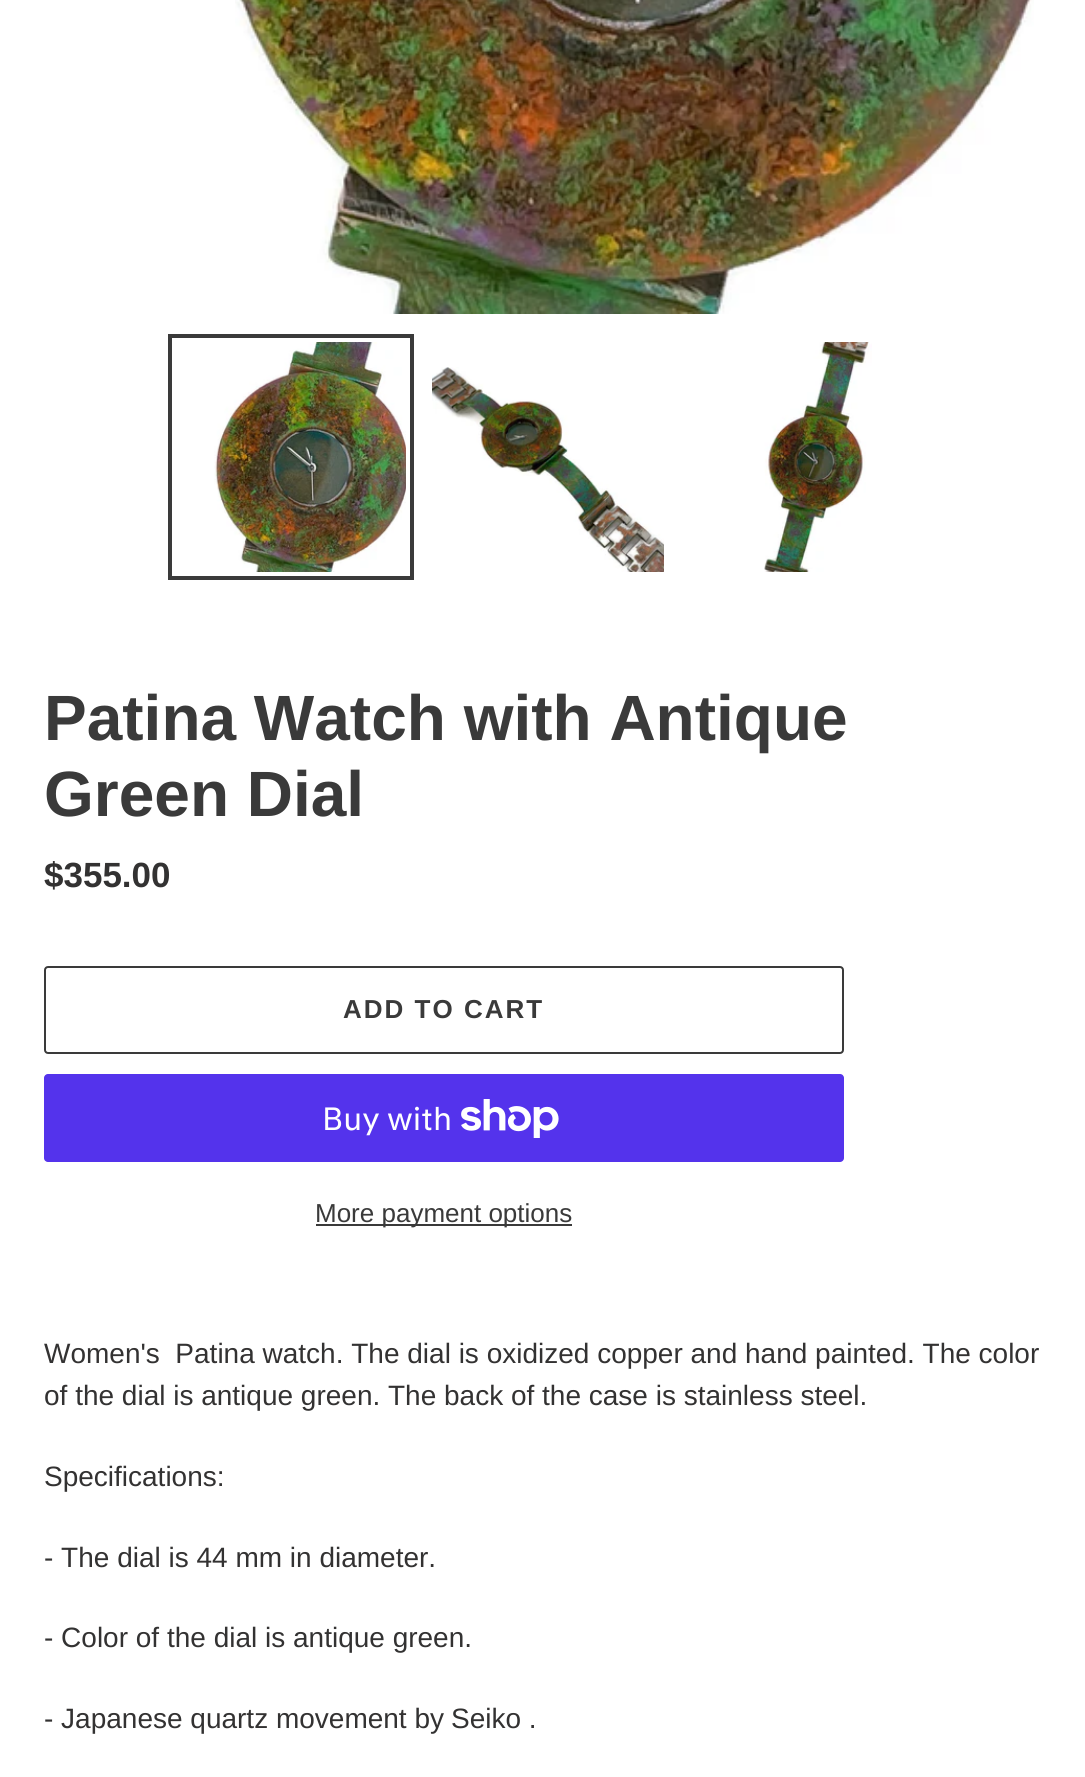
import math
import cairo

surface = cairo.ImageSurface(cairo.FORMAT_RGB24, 1085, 1777)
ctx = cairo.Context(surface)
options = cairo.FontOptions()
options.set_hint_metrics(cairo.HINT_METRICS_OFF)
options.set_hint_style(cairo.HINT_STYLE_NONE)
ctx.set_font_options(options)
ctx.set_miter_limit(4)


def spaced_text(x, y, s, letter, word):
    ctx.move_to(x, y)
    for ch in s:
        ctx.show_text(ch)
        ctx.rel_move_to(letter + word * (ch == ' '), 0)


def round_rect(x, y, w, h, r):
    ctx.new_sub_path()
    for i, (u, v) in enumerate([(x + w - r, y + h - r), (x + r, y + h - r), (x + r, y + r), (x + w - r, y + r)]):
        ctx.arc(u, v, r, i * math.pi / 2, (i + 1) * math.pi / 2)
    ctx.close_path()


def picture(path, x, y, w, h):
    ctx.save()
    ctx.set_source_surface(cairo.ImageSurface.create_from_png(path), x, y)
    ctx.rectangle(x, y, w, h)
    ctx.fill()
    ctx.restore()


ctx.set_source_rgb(1, 1, 1)
ctx.paint()
picture("img1.png", 235, 0, 799, 314)
ctx.rectangle(170, 336, 242, 242)
ctx.set_source_rgb(0.227, 0.227, 0.227)
ctx.set_line_width(4)
ctx.stroke()
picture("img2.png", 214, 342, 192, 230)
picture("img3.png", 432, 367, 232, 205)
picture("img4.png", 764, 342, 108, 230)
ctx.select_font_face("Liberation Sans", cairo.FONT_SLANT_NORMAL, cairo.FONT_WEIGHT_BOLD)
ctx.set_font_size(64)
ctx.move_to(44, 740)
ctx.show_text("Patina Watch with Antique")
ctx.move_to(44, 816)
ctx.show_text("Green Dial")
ctx.set_font_size(35)
ctx.set_source_rgb(0.2, 0.196, 0.196)
ctx.move_to(44, 887)
ctx.show_text("$355.00")
round_rect(45, 967, 798, 86, 3)
ctx.set_source_rgb(0.227, 0.227, 0.227)
ctx.set_line_width(2)
ctx.stroke()
ctx.set_font_size(26)
spaced_text(343, 1018, "ADD TO CART", 2, 0)
ctx.set_source_rgb(0.329, 0.2, 0.922)
round_rect(44, 1074, 800, 88, 4)
ctx.fill()
ctx.select_font_face("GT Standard")
ctx.set_font_size(32)
ctx.set_source_rgb(1, 1, 1)
ctx.move_to(322, 1130)
ctx.show_text("Buy with")
picture("img5.png", 461, 1099, 98, 39)
ctx.set_source_rgb(0.227, 0.227, 0.227)
ctx.rectangle(316, 1224, 256, 2)
ctx.fill()
ctx.select_font_face("Liberation Sans")
ctx.set_font_size(26)
ctx.move_to(315, 1222)
ctx.show_text("More payment options")
ctx.set_font_size(28)
ctx.set_source_rgb(0.2, 0.196, 0.196)
ctx.move_to(44, 1363)
ctx.show_text("Women's  Patina watch. The dial is oxidized copper and hand painted. The color")
ctx.move_to(44, 1405)
ctx.show_text("of the dial is antique green. The back of the case is stainless steel.")
ctx.move_to(44, 1486)
ctx.show_text("Specifications:")
ctx.move_to(44, 1567)
ctx.show_text("- The dial is 44 mm in diameter.")
ctx.move_to(44, 1647)
ctx.show_text("- Color of the dial is antique green.")
ctx.move_to(44, 1728)
ctx.show_text("- Japanese quartz movement by")
ctx.move_to(451, 1728)
ctx.show_text("Seiko .")
surface.write_to_png("page.png")
